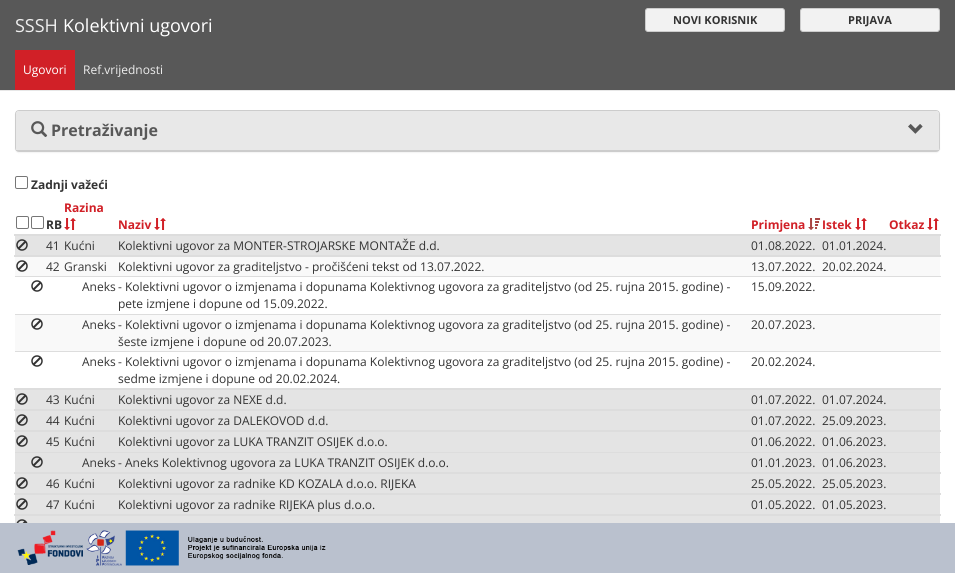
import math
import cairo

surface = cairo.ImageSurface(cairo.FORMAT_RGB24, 955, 573)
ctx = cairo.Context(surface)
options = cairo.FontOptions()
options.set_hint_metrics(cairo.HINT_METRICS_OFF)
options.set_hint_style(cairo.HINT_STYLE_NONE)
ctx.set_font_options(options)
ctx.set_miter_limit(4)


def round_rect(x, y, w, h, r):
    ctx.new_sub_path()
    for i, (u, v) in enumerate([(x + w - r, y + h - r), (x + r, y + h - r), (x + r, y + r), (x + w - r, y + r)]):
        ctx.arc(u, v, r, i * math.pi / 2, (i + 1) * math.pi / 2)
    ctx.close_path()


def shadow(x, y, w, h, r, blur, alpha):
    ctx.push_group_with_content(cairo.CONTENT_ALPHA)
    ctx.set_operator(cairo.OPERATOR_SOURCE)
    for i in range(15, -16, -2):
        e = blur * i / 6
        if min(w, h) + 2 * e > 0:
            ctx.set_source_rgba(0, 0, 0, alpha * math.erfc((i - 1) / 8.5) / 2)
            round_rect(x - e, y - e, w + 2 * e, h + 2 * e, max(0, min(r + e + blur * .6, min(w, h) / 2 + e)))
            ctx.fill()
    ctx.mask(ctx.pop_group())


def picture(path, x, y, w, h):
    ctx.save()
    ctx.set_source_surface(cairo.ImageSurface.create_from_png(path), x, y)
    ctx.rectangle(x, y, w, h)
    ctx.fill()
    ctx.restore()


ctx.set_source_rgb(1, 1, 1)
ctx.paint()
ctx.set_source_rgb(0.345, 0.345, 0.345)
ctx.rectangle(0, 0, 955, 90)
ctx.fill()
ctx.set_source_rgb(0.906, 0.906, 0.906)
ctx.rectangle(0, 90, 955, 1)
ctx.fill()
ctx.set_source_rgb(0.949, 0.949, 0.949)
round_rect(645.5, 8.5, 139, 23, 2.5)
ctx.fill_preserve()
ctx.set_source_rgb(0.8, 0.8, 0.8)
ctx.set_line_width(1)
ctx.stroke()
ctx.select_font_face("Open Sans", cairo.FONT_SLANT_NORMAL, cairo.FONT_WEIGHT_BOLD)
ctx.set_font_size(11)
ctx.set_source_rgb(0.2, 0.2, 0.2)
ctx.move_to(673, 24)
ctx.show_text("NOVI KORISNIK")
ctx.set_source_rgb(0.949, 0.949, 0.949)
round_rect(800.5, 8.5, 139, 23, 2.5)
ctx.fill_preserve()
ctx.set_source_rgb(0.8, 0.8, 0.8)
ctx.stroke()
ctx.set_source_rgb(0.2, 0.2, 0.2)
ctx.move_to(848, 24)
ctx.show_text("PRIJAVA")
ctx.set_source_rgb(0.82, 0.125, 0.153)
ctx.rectangle(15, 50, 60, 40)
ctx.fill()
ctx.select_font_face("Open Sans")
ctx.set_font_size(12)
ctx.set_source_rgb(1, 1, 1)
ctx.move_to(23, 74)
ctx.show_text("Ugovori")
ctx.set_source_rgb(0.933, 0.933, 0.933)
ctx.move_to(83, 74)
ctx.show_text("Ref.vrijednosti")
ctx.set_font_size(18)
ctx.move_to(15, 32)
ctx.show_text("SSSH")
ctx.set_source_rgb(1, 1, 1)
ctx.move_to(63, 32)
ctx.show_text("Kolektivni ugovori")
ctx.set_source_rgb(0, 0, 0)
shadow(15, 111, 925, 42, 4, 0.5, 0.05)
round_rect(15.5, 110.5, 924, 41, 3.5)
ctx.set_source_rgb(0.8, 0.8, 0.8)
ctx.stroke()
ctx.set_source_rgb(0.91, 0.91, 0.91)
ctx.new_path()
ctx.move_to(19, 111)
ctx.line_to(936, 111)
ctx.curve_to(937.5, 111, 939, 112.5, 939, 114)
ctx.line_to(939, 151)
ctx.line_to(16, 151)
ctx.line_to(16, 114)
ctx.curve_to(16, 112.5, 17.5, 111, 19, 111)
ctx.close_path()
ctx.fill()
ctx.set_source_rgb(0.8, 0.8, 0.8)
ctx.rectangle(16, 150, 923, 1)
ctx.fill()
picture("img1.png", 31, 121, 17, 16)
ctx.select_font_face("Open Sans", cairo.FONT_SLANT_NORMAL, cairo.FONT_WEIGHT_BOLD)
ctx.set_font_size(16)
ctx.set_source_rgb(0.345, 0.345, 0.345)
ctx.move_to(51, 136)
ctx.show_text("Pretraživanje")
picture("img2.png", 908, 124, 15, 10)
round_rect(15.5, 176.5, 12, 12, 1.5)
ctx.set_source_rgb(0.463, 0.463, 0.463)
ctx.stroke()
ctx.set_font_size(12)
ctx.set_source_rgb(0.2, 0.2, 0.2)
ctx.move_to(31, 189)
ctx.show_text("Zadnji važeći")
ctx.set_source_rgb(0.82, 0.125, 0.153)
ctx.move_to(64, 212)
ctx.show_text("Razina")
picture("img3.png", 64, 218, 12, 12)
round_rect(16.5, 216.5, 12, 12, 1.5)
ctx.set_source_rgb(0.463, 0.463, 0.463)
ctx.stroke()
round_rect(31.5, 216.5, 12, 12, 1.5)
ctx.stroke()
ctx.set_source_rgb(0.2, 0.2, 0.2)
ctx.move_to(46, 229)
ctx.show_text("RB")
ctx.set_source_rgb(0.82, 0.125, 0.153)
ctx.move_to(118, 229)
ctx.show_text("Naziv")
picture("img3.png", 154, 218, 12, 12)
ctx.move_to(751, 229)
ctx.show_text("Primjena")
picture("img4.png", 808, 218, 13, 12)
ctx.move_to(822, 229)
ctx.show_text("Istek")
picture("img3.png", 855, 218, 12, 12)
ctx.set_source_rgb(0.867, 0.867, 0.867)
ctx.rectangle(14, 234, 927, 2)
ctx.fill()
ctx.set_source_rgb(0.82, 0.125, 0.153)
ctx.move_to(889, 229)
ctx.show_text("Otkaz")
picture("img3.png", 927, 218, 12, 12)
ctx.set_source_rgb(0.894, 0.894, 0.894)
ctx.rectangle(15, 236, 925, 19)
ctx.fill()
picture("img5.png", 16, 239, 12, 12)
ctx.select_font_face("Open Sans")
ctx.set_source_rgb(0.2, 0.2, 0.2)
ctx.move_to(46, 250)
ctx.show_text("41")
ctx.move_to(64, 250)
ctx.show_text("Kućni")
ctx.move_to(118, 250)
ctx.show_text("Kolektivni ugovor za MONTER-STROJARSKE MONTAŽE d.d.")
ctx.move_to(751, 250)
ctx.show_text("01.08.2022.")
ctx.move_to(822, 250)
ctx.show_text("01.01.2024.")
ctx.set_source_rgb(0.867, 0.867, 0.867)
ctx.rectangle(14, 255, 927, 2)
ctx.fill()
ctx.set_source_rgb(0.976, 0.976, 0.976)
ctx.rectangle(15, 257, 925, 19)
ctx.fill()
picture("img6.png", 16, 260, 12, 12)
ctx.set_source_rgb(0.2, 0.2, 0.2)
ctx.move_to(46, 271)
ctx.show_text("42")
ctx.move_to(64, 271)
ctx.show_text("Granski")
ctx.move_to(118, 271)
ctx.show_text("Kolektivni ugovor za graditeljstvo - pročišćeni tekst od 13.07.2022.")
ctx.move_to(751, 271)
ctx.show_text("13.07.2022.")
ctx.move_to(822, 271)
ctx.show_text("20.02.2024.")
ctx.set_source_rgb(0.867, 0.867, 0.867)
ctx.rectangle(15, 276, 926, 1)
ctx.fill()
picture("img7.png", 31, 280, 12, 12)
ctx.set_source_rgb(0.2, 0.2, 0.2)
ctx.move_to(82, 291)
ctx.show_text("Aneks")
ctx.move_to(118, 291)
ctx.show_text("- Kolektivni ugovor o izmjenama i dopunama Kolektivnog ugovora za graditeljstvo (od 25. rujna 2015. godine) -")
ctx.move_to(118, 308)
ctx.show_text("pete izmjene i dopune od 15.09.2022.")
ctx.move_to(751, 291)
ctx.show_text("15.09.2022.")
ctx.set_source_rgb(0.976, 0.976, 0.976)
ctx.rectangle(15, 315, 925, 36)
ctx.fill()
ctx.set_source_rgb(0.867, 0.867, 0.867)
ctx.rectangle(15, 314, 926, 1)
ctx.fill()
picture("img6.png", 31, 318, 12, 12)
ctx.set_source_rgb(0.2, 0.2, 0.2)
ctx.move_to(82, 329)
ctx.show_text("Aneks")
ctx.move_to(118, 329)
ctx.show_text("- Kolektivni ugovor o izmjenama i dopunama Kolektivnog ugovora za graditeljstvo (od 25. rujna 2015. godine) -")
ctx.move_to(118, 346)
ctx.show_text("šeste izmjene i dopune od 20.07.2023.")
ctx.move_to(751, 329)
ctx.show_text("20.07.2023.")
ctx.set_source_rgb(0.867, 0.867, 0.867)
ctx.rectangle(15, 351, 926, 1)
ctx.fill()
picture("img7.png", 31, 355, 12, 12)
ctx.set_source_rgb(0.2, 0.2, 0.2)
ctx.move_to(82, 366)
ctx.show_text("Aneks")
ctx.move_to(118, 366)
ctx.show_text("- Kolektivni ugovor o izmjenama i dopunama Kolektivnog ugovora za graditeljstvo (od 25. rujna 2015. godine) -")
ctx.move_to(118, 383)
ctx.show_text("sedme izmjene i dopune od 20.02.2024.")
ctx.move_to(751, 366)
ctx.show_text("20.02.2024.")
ctx.set_source_rgb(0.867, 0.867, 0.867)
ctx.rectangle(14, 388, 927, 2)
ctx.fill()
ctx.set_source_rgb(0.894, 0.894, 0.894)
ctx.rectangle(15, 390, 925, 19)
ctx.fill()
picture("img5.png", 16, 393, 12, 12)
ctx.set_source_rgb(0.2, 0.2, 0.2)
ctx.move_to(46, 404)
ctx.show_text("43")
ctx.move_to(64, 404)
ctx.show_text("Kućni")
ctx.move_to(118, 404)
ctx.show_text("Kolektivni ugovor za NEXE d.d.")
ctx.move_to(751, 404)
ctx.show_text("01.07.2022.")
ctx.move_to(822, 404)
ctx.show_text("01.07.2024.")
ctx.set_source_rgb(0.867, 0.867, 0.867)
ctx.rectangle(14, 409, 927, 2)
ctx.fill()
ctx.set_source_rgb(0.894, 0.894, 0.894)
ctx.rectangle(15, 411, 925, 19)
ctx.fill()
picture("img5.png", 16, 414, 12, 12)
ctx.set_source_rgb(0.2, 0.2, 0.2)
ctx.move_to(46, 425)
ctx.show_text("44")
ctx.move_to(64, 425)
ctx.show_text("Kućni")
ctx.move_to(118, 425)
ctx.show_text("Kolektivni ugovor za DALEKOVOD d.d.")
ctx.move_to(751, 425)
ctx.show_text("01.07.2022.")
ctx.move_to(822, 425)
ctx.show_text("25.09.2023.")
ctx.set_source_rgb(0.867, 0.867, 0.867)
ctx.rectangle(14, 430, 927, 2)
ctx.fill()
ctx.set_source_rgb(0.894, 0.894, 0.894)
ctx.rectangle(15, 432, 925, 20)
ctx.fill()
picture("img5.png", 16, 435, 12, 12)
ctx.set_source_rgb(0.2, 0.2, 0.2)
ctx.move_to(46, 446)
ctx.show_text("45")
ctx.move_to(64, 446)
ctx.show_text("Kućni")
ctx.move_to(118, 446)
ctx.show_text("Kolektivni ugovor za LUKA TRANZIT OSIJEK d.o.o.")
ctx.move_to(751, 446)
ctx.show_text("01.06.2022.")
ctx.move_to(822, 446)
ctx.show_text("01.06.2023.")
ctx.set_source_rgb(0.894, 0.894, 0.894)
ctx.rectangle(15, 453, 925, 19)
ctx.fill()
ctx.set_source_rgb(0.867, 0.867, 0.867)
ctx.rectangle(15, 452, 926, 1)
ctx.fill()
picture("img5.png", 31, 456, 12, 12)
ctx.set_source_rgb(0.2, 0.2, 0.2)
ctx.move_to(82, 467)
ctx.show_text("Aneks")
ctx.move_to(118, 467)
ctx.show_text("- Aneks Kolektivnog ugovora za LUKA TRANZIT OSIJEK d.o.o.")
ctx.move_to(751, 467)
ctx.show_text("01.01.2023.")
ctx.move_to(822, 467)
ctx.show_text("01.06.2023.")
ctx.set_source_rgb(0.867, 0.867, 0.867)
ctx.rectangle(14, 472, 927, 2)
ctx.fill()
ctx.set_source_rgb(0.894, 0.894, 0.894)
ctx.rectangle(15, 474, 925, 19)
ctx.fill()
picture("img5.png", 16, 477, 12, 12)
ctx.set_source_rgb(0.2, 0.2, 0.2)
ctx.move_to(46, 488)
ctx.show_text("46")
ctx.move_to(64, 488)
ctx.show_text("Kućni")
ctx.move_to(118, 488)
ctx.show_text("Kolektivni ugovor za radnike KD KOZALA d.o.o. RIJEKA")
ctx.move_to(751, 488)
ctx.show_text("25.05.2022.")
ctx.move_to(822, 488)
ctx.show_text("25.05.2023.")
ctx.set_source_rgb(0.867, 0.867, 0.867)
ctx.rectangle(14, 493, 927, 2)
ctx.fill()
ctx.set_source_rgb(0.894, 0.894, 0.894)
ctx.rectangle(15, 495, 925, 19)
ctx.fill()
picture("img5.png", 16, 498, 12, 12)
ctx.set_source_rgb(0.2, 0.2, 0.2)
ctx.move_to(46, 509)
ctx.show_text("47")
ctx.move_to(64, 509)
ctx.show_text("Kućni")
ctx.move_to(118, 509)
ctx.show_text("Kolektivni ugovor za radnike RIJEKA plus d.o.o.")
ctx.move_to(751, 509)
ctx.show_text("01.05.2022.")
ctx.move_to(822, 509)
ctx.show_text("01.05.2023.")
ctx.set_source_rgb(0.867, 0.867, 0.867)
ctx.rectangle(14, 514, 927, 2)
ctx.fill()
ctx.set_source_rgb(0.894, 0.894, 0.894)
ctx.rectangle(15, 516, 925, 7)
ctx.fill()
picture("img8.png", 16, 519, 12, 4)
ctx.set_source_rgb(0.729, 0.757, 0.808)
ctx.rectangle(0, 523, 955, 50)
ctx.fill()
picture("img9.png", 17, 530, 309, 36)
surface.write_to_png("page.png")
